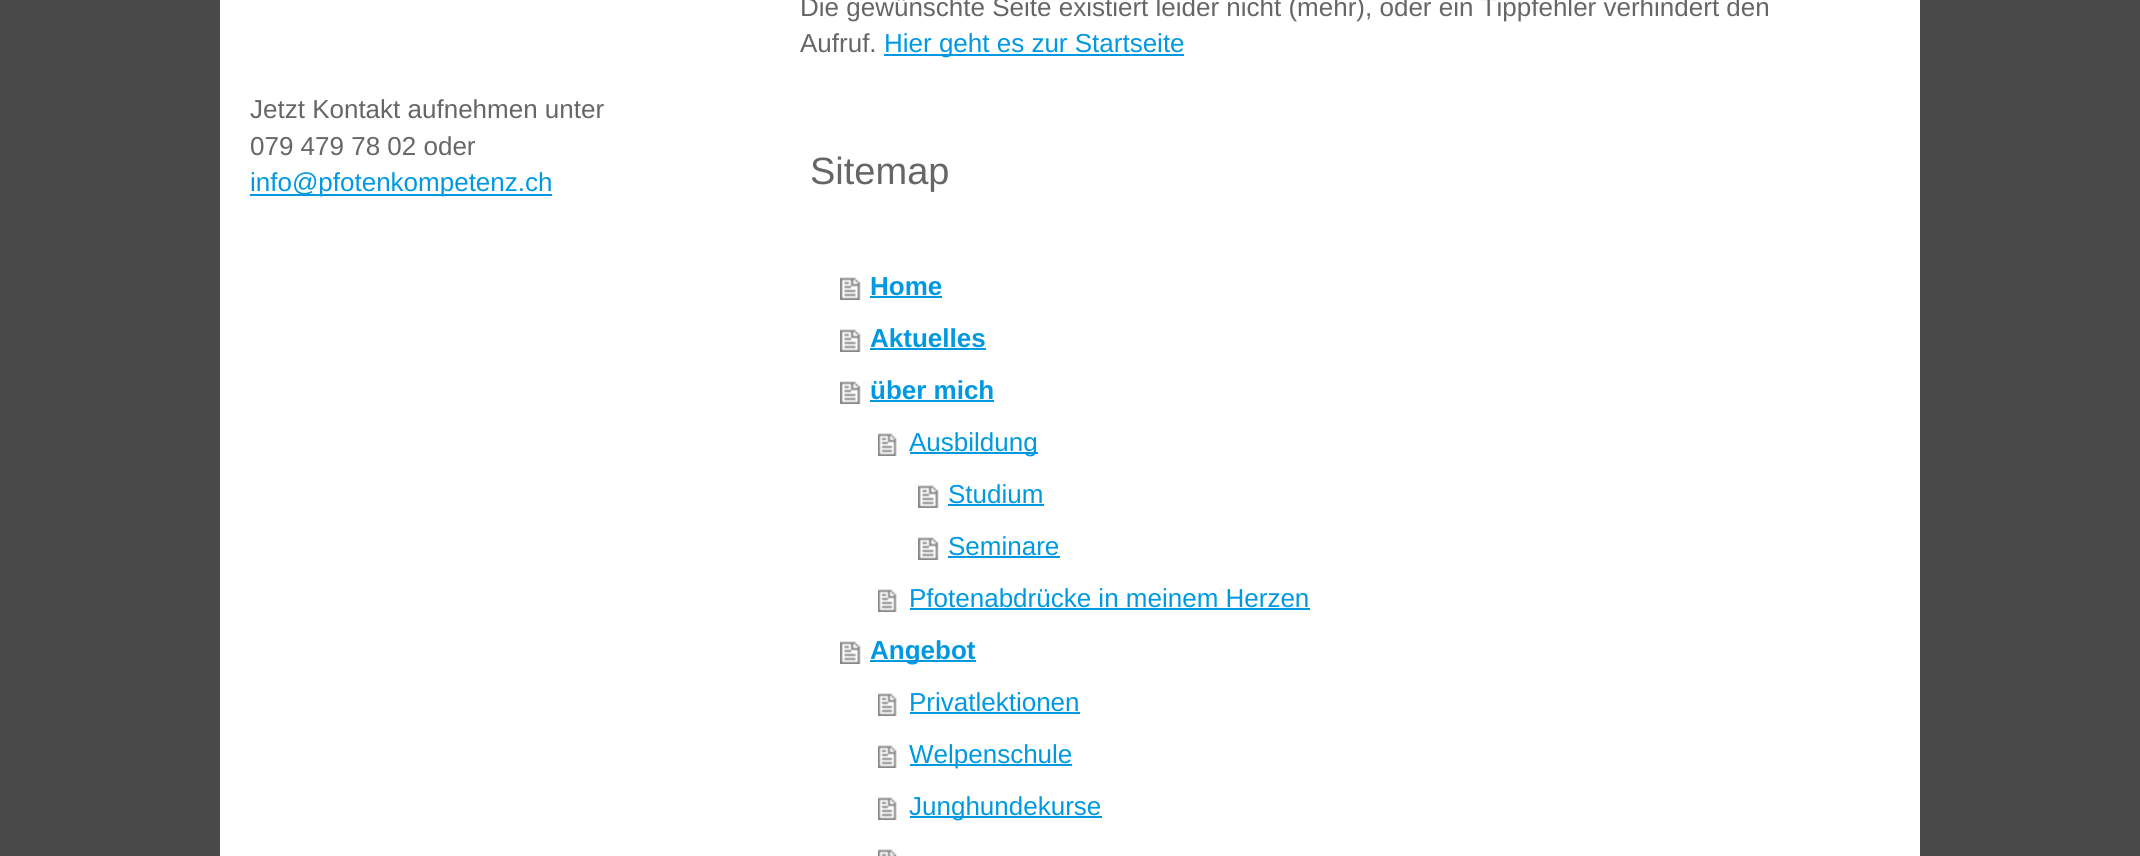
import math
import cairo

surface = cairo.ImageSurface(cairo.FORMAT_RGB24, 2140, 856)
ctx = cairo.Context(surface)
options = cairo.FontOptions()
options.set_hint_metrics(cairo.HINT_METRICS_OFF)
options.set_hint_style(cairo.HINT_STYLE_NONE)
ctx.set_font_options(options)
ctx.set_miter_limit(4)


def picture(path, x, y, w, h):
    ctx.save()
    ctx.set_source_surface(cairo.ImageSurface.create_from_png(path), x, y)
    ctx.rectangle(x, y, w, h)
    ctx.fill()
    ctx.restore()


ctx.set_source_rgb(0.286, 0.286, 0.286)
ctx.paint()
ctx.set_source_rgb(1, 1, 1)
ctx.rectangle(220, 0, 1700, 856)
ctx.fill()
ctx.select_font_face("Liberation Sans")
ctx.set_font_size(26)
ctx.set_source_rgb(0.4, 0.4, 0.4)
ctx.move_to(250, 118)
ctx.show_text("Jetzt Kontakt aufnehmen unter")
ctx.move_to(250, 155)
ctx.show_text("079 479 78 02 oder")
ctx.set_source_rgb(0, 0.6, 0.882)
ctx.rectangle(250, 194, 302, 2)
ctx.fill()
ctx.move_to(250, 191)
ctx.show_text("info@pfotenkompetenz.ch")
ctx.set_source_rgb(0.4, 0.4, 0.4)
ctx.move_to(800, 16)
ctx.show_text("Die gewünschte Seite existiert leider nicht (mehr), oder ein Tippfehler verhindert den")
ctx.move_to(800, 52)
ctx.show_text("Aufruf.")
ctx.set_source_rgb(0, 0.6, 0.882)
ctx.rectangle(884, 54, 300, 2)
ctx.fill()
ctx.move_to(884, 52)
ctx.show_text("Hier geht es zur Startseite")
ctx.set_font_size(38)
ctx.set_source_rgb(0.4, 0.4, 0.4)
ctx.move_to(810, 184)
ctx.show_text("Sitemap")
picture("img1.png", 840, 277, 21, 23)
ctx.select_font_face("Liberation Sans", cairo.FONT_SLANT_NORMAL, cairo.FONT_WEIGHT_BOLD)
ctx.set_font_size(26)
ctx.set_source_rgb(0, 0.6, 0.882)
ctx.move_to(870, 295)
ctx.show_text("Home")
ctx.rectangle(870, 296, 72, 2)
ctx.fill()
picture("img1.png", 840, 329, 21, 23)
ctx.move_to(870, 347)
ctx.show_text("Aktuelles")
ctx.rectangle(870, 348, 116, 2)
ctx.fill()
picture("img1.png", 840, 381, 21, 23)
ctx.move_to(870, 399)
ctx.show_text("über mich")
ctx.rectangle(870, 400, 124, 2)
ctx.fill()
picture("img2.png", 878, 433, 19, 23)
ctx.rectangle(910, 452, 128, 2)
ctx.fill()
ctx.select_font_face("Liberation Sans")
ctx.move_to(909, 451)
ctx.show_text("Ausbildung")
picture("img1.png", 918, 485, 21, 23)
ctx.move_to(948, 503)
ctx.show_text("Studium")
ctx.rectangle(948, 504, 96, 2)
ctx.fill()
picture("img1.png", 918, 537, 21, 23)
ctx.move_to(948, 555)
ctx.show_text("Seminare")
ctx.rectangle(948, 556, 112, 2)
ctx.fill()
picture("img2.png", 878, 589, 19, 23)
ctx.move_to(909, 607)
ctx.show_text("Pfotenabdrücke in meinem Herzen")
ctx.rectangle(910, 608, 400, 2)
ctx.fill()
picture("img1.png", 840, 641, 21, 23)
ctx.rectangle(870, 660, 106, 2)
ctx.fill()
ctx.select_font_face("Liberation Sans", cairo.FONT_SLANT_NORMAL, cairo.FONT_WEIGHT_BOLD)
ctx.move_to(870, 659)
ctx.show_text("Angebot")
picture("img2.png", 878, 693, 19, 23)
ctx.select_font_face("Liberation Sans")
ctx.move_to(909, 711)
ctx.show_text("Privatlektionen")
ctx.rectangle(910, 712, 170, 2)
ctx.fill()
picture("img2.png", 878, 745, 19, 23)
ctx.rectangle(910, 764, 162, 2)
ctx.fill()
ctx.move_to(909, 763)
ctx.show_text("Welpenschule")
picture("img2.png", 878, 797, 19, 23)
ctx.rectangle(910, 816, 192, 2)
ctx.fill()
ctx.move_to(909, 815)
ctx.show_text("Junghundekurse")
picture("img3.png", 878, 849, 19, 7)
surface.write_to_png("page.png")
